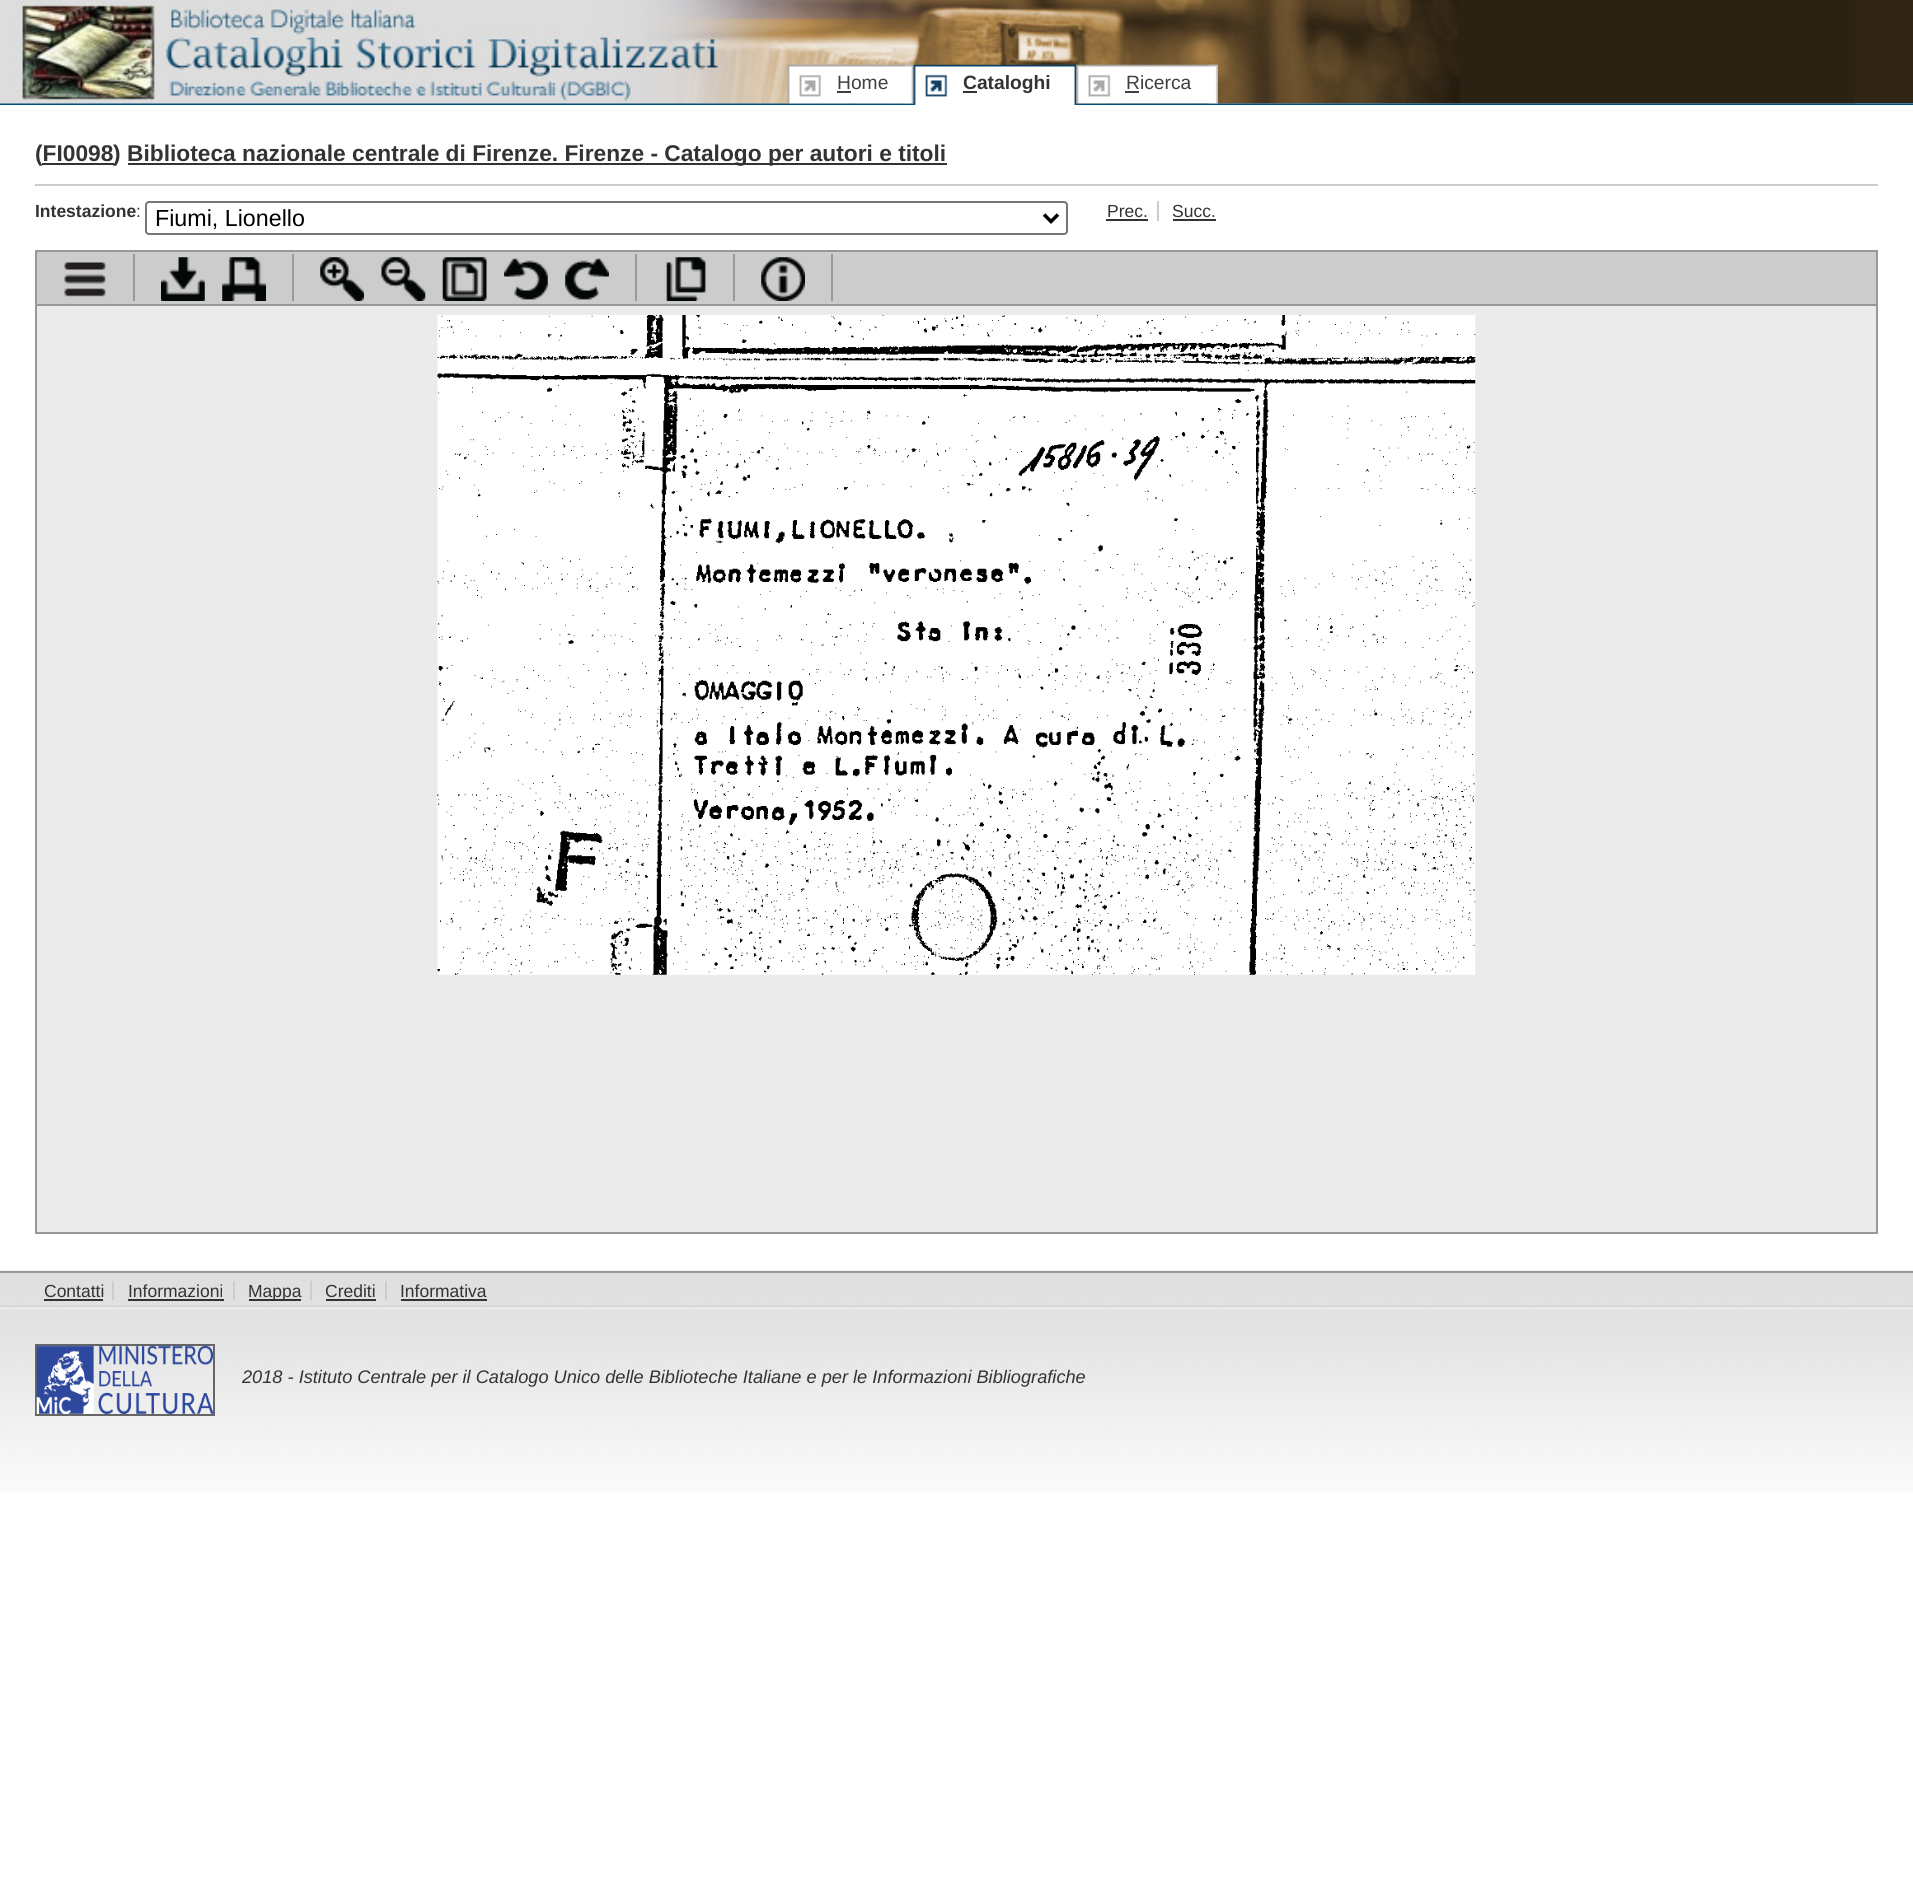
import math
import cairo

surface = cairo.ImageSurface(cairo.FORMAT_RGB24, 1913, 1903)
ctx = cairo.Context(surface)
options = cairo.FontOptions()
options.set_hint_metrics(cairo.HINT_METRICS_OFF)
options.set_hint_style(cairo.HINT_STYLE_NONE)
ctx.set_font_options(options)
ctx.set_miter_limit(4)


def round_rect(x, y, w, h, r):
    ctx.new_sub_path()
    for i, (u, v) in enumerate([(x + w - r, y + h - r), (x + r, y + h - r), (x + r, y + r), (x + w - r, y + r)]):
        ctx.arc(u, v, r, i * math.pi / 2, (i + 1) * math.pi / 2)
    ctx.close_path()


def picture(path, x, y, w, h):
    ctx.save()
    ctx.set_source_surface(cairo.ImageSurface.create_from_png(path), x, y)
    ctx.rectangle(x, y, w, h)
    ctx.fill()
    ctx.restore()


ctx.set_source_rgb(1, 1, 1)
ctx.paint()
picture("img1.png", 0, 103, 1913, 2)
ctx.set_source_rgb(0.188, 0.145, 0.082)
ctx.rectangle(1855, 0, 58, 103)
ctx.fill()
picture("img2.png", 0, 0, 1855, 104)
picture("img3.png", 787, 64, 127, 40)
picture("img4.png", 904, 64, 10, 40)
ctx.select_font_face("Liberation Sans")
ctx.set_font_size(19.25)
ctx.set_source_rgb(0.247, 0.247, 0.247)
ctx.move_to(837, 89)
ctx.show_text("Home")
ctx.rectangle(837, 91, 14, 2)
ctx.fill()
picture("img5.png", 913, 64, 164, 41)
picture("img6.png", 1065, 64, 12, 41)
ctx.set_source_rgb(0.2, 0.2, 0.2)
ctx.rectangle(963, 91, 14, 2)
ctx.fill()
ctx.select_font_face("Liberation Sans", cairo.FONT_SLANT_NORMAL, cairo.FONT_WEIGHT_BOLD)
ctx.move_to(963, 89)
ctx.show_text("Cataloghi")
picture("img7.png", 1076, 64, 142, 40)
picture("img8.png", 1209, 64, 9, 40)
ctx.select_font_face("Liberation Sans")
ctx.set_source_rgb(0.247, 0.247, 0.247)
ctx.move_to(1126, 89)
ctx.show_text("Ricerca")
ctx.rectangle(1125, 91, 14, 2)
ctx.fill()
ctx.select_font_face("Liberation Sans", cairo.FONT_SLANT_NORMAL, cairo.FONT_WEIGHT_BOLD)
ctx.set_font_size(22.75)
ctx.set_source_rgb(0.2, 0.2, 0.2)
ctx.move_to(35, 161)
ctx.show_text("(FI0098")
ctx.rectangle(42, 163, 72, 2)
ctx.fill()
ctx.move_to(113, 161)
ctx.show_text(")")
ctx.rectangle(128, 163, 819, 2)
ctx.fill()
ctx.move_to(127, 161)
ctx.show_text("Biblioteca nazionale centrale di Firenze. Firenze - Catalogo per autori e titoli")
ctx.set_source_rgb(0.8, 0.8, 0.8)
ctx.rectangle(35, 184, 1843, 2)
ctx.fill()
ctx.set_font_size(17.5)
ctx.set_source_rgb(0.2, 0.2, 0.2)
ctx.move_to(35, 217)
ctx.show_text("Intestazione")
ctx.select_font_face("Liberation Sans")
ctx.move_to(136, 217)
ctx.show_text(":")
round_rect(146, 202, 921, 32, 3)
ctx.set_source_rgb(0.463, 0.463, 0.463)
ctx.stroke()
ctx.new_path()
ctx.move_to(1044, 214.5)
ctx.line_to(1051, 221.5)
ctx.line_to(1058, 214.5)
ctx.set_source_rgb(0, 0, 0)
ctx.set_line_width(3.5)
ctx.stroke()
ctx.set_font_size(23.25)
ctx.move_to(155, 226)
ctx.show_text("Fiumi, Lionello")
ctx.set_font_size(17.5)
ctx.set_source_rgb(0.2, 0.2, 0.2)
ctx.move_to(1107, 217)
ctx.show_text("Prec.")
ctx.set_source_rgb(0.8, 0.8, 0.8)
ctx.rectangle(1157, 201, 2, 20)
ctx.fill()
ctx.set_source_rgb(0.2, 0.2, 0.2)
ctx.rectangle(1106, 219, 42, 2)
ctx.fill()
ctx.move_to(1172, 217)
ctx.show_text("Succ.")
ctx.rectangle(1173, 219, 43, 2)
ctx.fill()
ctx.set_source_rgb(0.8, 0.8, 0.8)
ctx.rectangle(36, 251, 1841, 54)
ctx.fill_preserve()
ctx.set_source_rgb(0.6, 0.6, 0.6)
ctx.set_line_width(2)
ctx.stroke()
ctx.rectangle(133, 254, 2, 47)
ctx.fill()
picture("img9.png", 64, 262, 42, 35)
ctx.rectangle(292, 254, 2, 47)
ctx.fill()
picture("img10.png", 161, 257, 44, 44)
picture("img11.png", 222, 257, 44, 44)
ctx.rectangle(635, 254, 2, 47)
ctx.fill()
picture("img12.png", 320, 257, 44, 44)
picture("img13.png", 381, 257, 45, 44)
picture("img14.png", 442, 257, 45, 44)
picture("img15.png", 504, 258, 44, 42)
picture("img16.png", 565, 258, 44, 42)
ctx.rectangle(733, 254, 2, 47)
ctx.fill()
picture("img17.png", 666, 257, 40, 44)
ctx.rectangle(831, 254, 2, 47)
ctx.fill()
picture("img18.png", 761, 257, 44, 44)
ctx.set_source_rgb(0.922, 0.918, 0.925)
ctx.rectangle(37, 306, 1839, 926)
ctx.fill()
ctx.set_source_rgb(0.6, 0.6, 0.6)
ctx.rectangle(1876, 306, 2, 928)
ctx.fill()
ctx.rectangle(35, 1232, 1843, 2)
ctx.fill()
ctx.rectangle(35, 306, 2, 928)
ctx.fill()
picture("img19.png", 437, 315, 1039, 660)
picture("img20.png", 0, 1270, 1913, 223)
ctx.rectangle(0, 1271, 1913, 2)
ctx.fill()
picture("img21.png", 0, 1305, 1913, 4)
ctx.set_source_rgb(0.2, 0.2, 0.2)
ctx.move_to(44, 1297)
ctx.show_text("Contatti")
ctx.set_source_rgb(0.8, 0.8, 0.8)
ctx.rectangle(112, 1281, 2, 19)
ctx.fill()
ctx.set_source_rgb(0.2, 0.2, 0.2)
ctx.rectangle(44, 1299, 59, 2)
ctx.fill()
ctx.move_to(128, 1297)
ctx.show_text("Informazioni")
ctx.set_source_rgb(0.8, 0.8, 0.8)
ctx.rectangle(233, 1281, 2, 19)
ctx.fill()
ctx.set_source_rgb(0.2, 0.2, 0.2)
ctx.rectangle(128, 1299, 96, 2)
ctx.fill()
ctx.rectangle(249, 1299, 52, 2)
ctx.fill()
ctx.move_to(248, 1297)
ctx.show_text("Mappa")
ctx.set_source_rgb(0.8, 0.8, 0.8)
ctx.rectangle(310, 1281, 2, 19)
ctx.fill()
ctx.set_source_rgb(0.2, 0.2, 0.2)
ctx.move_to(325, 1297)
ctx.show_text("Crediti")
ctx.set_source_rgb(0.8, 0.8, 0.8)
ctx.rectangle(385, 1281, 2, 19)
ctx.fill()
ctx.set_source_rgb(0.2, 0.2, 0.2)
ctx.rectangle(326, 1299, 50, 2)
ctx.fill()
ctx.move_to(400, 1297)
ctx.show_text("Informativa")
ctx.rectangle(401, 1299, 86, 2)
ctx.fill()
ctx.rectangle(36, 1345, 178, 70)
ctx.set_source_rgb(0.4, 0.4, 0.4)
ctx.stroke()
picture("img22.png", 36, 1345, 178, 69)
ctx.select_font_face("Liberation Sans", cairo.FONT_SLANT_ITALIC)
ctx.set_font_size(18.2)
ctx.set_source_rgb(0.2, 0.2, 0.2)
ctx.move_to(242, 1383)
ctx.show_text("2018 - Istituto Centrale per il Catalogo Unico delle Biblioteche Italiane e per le Informazioni Bibliografiche")
surface.write_to_png("page.png")
